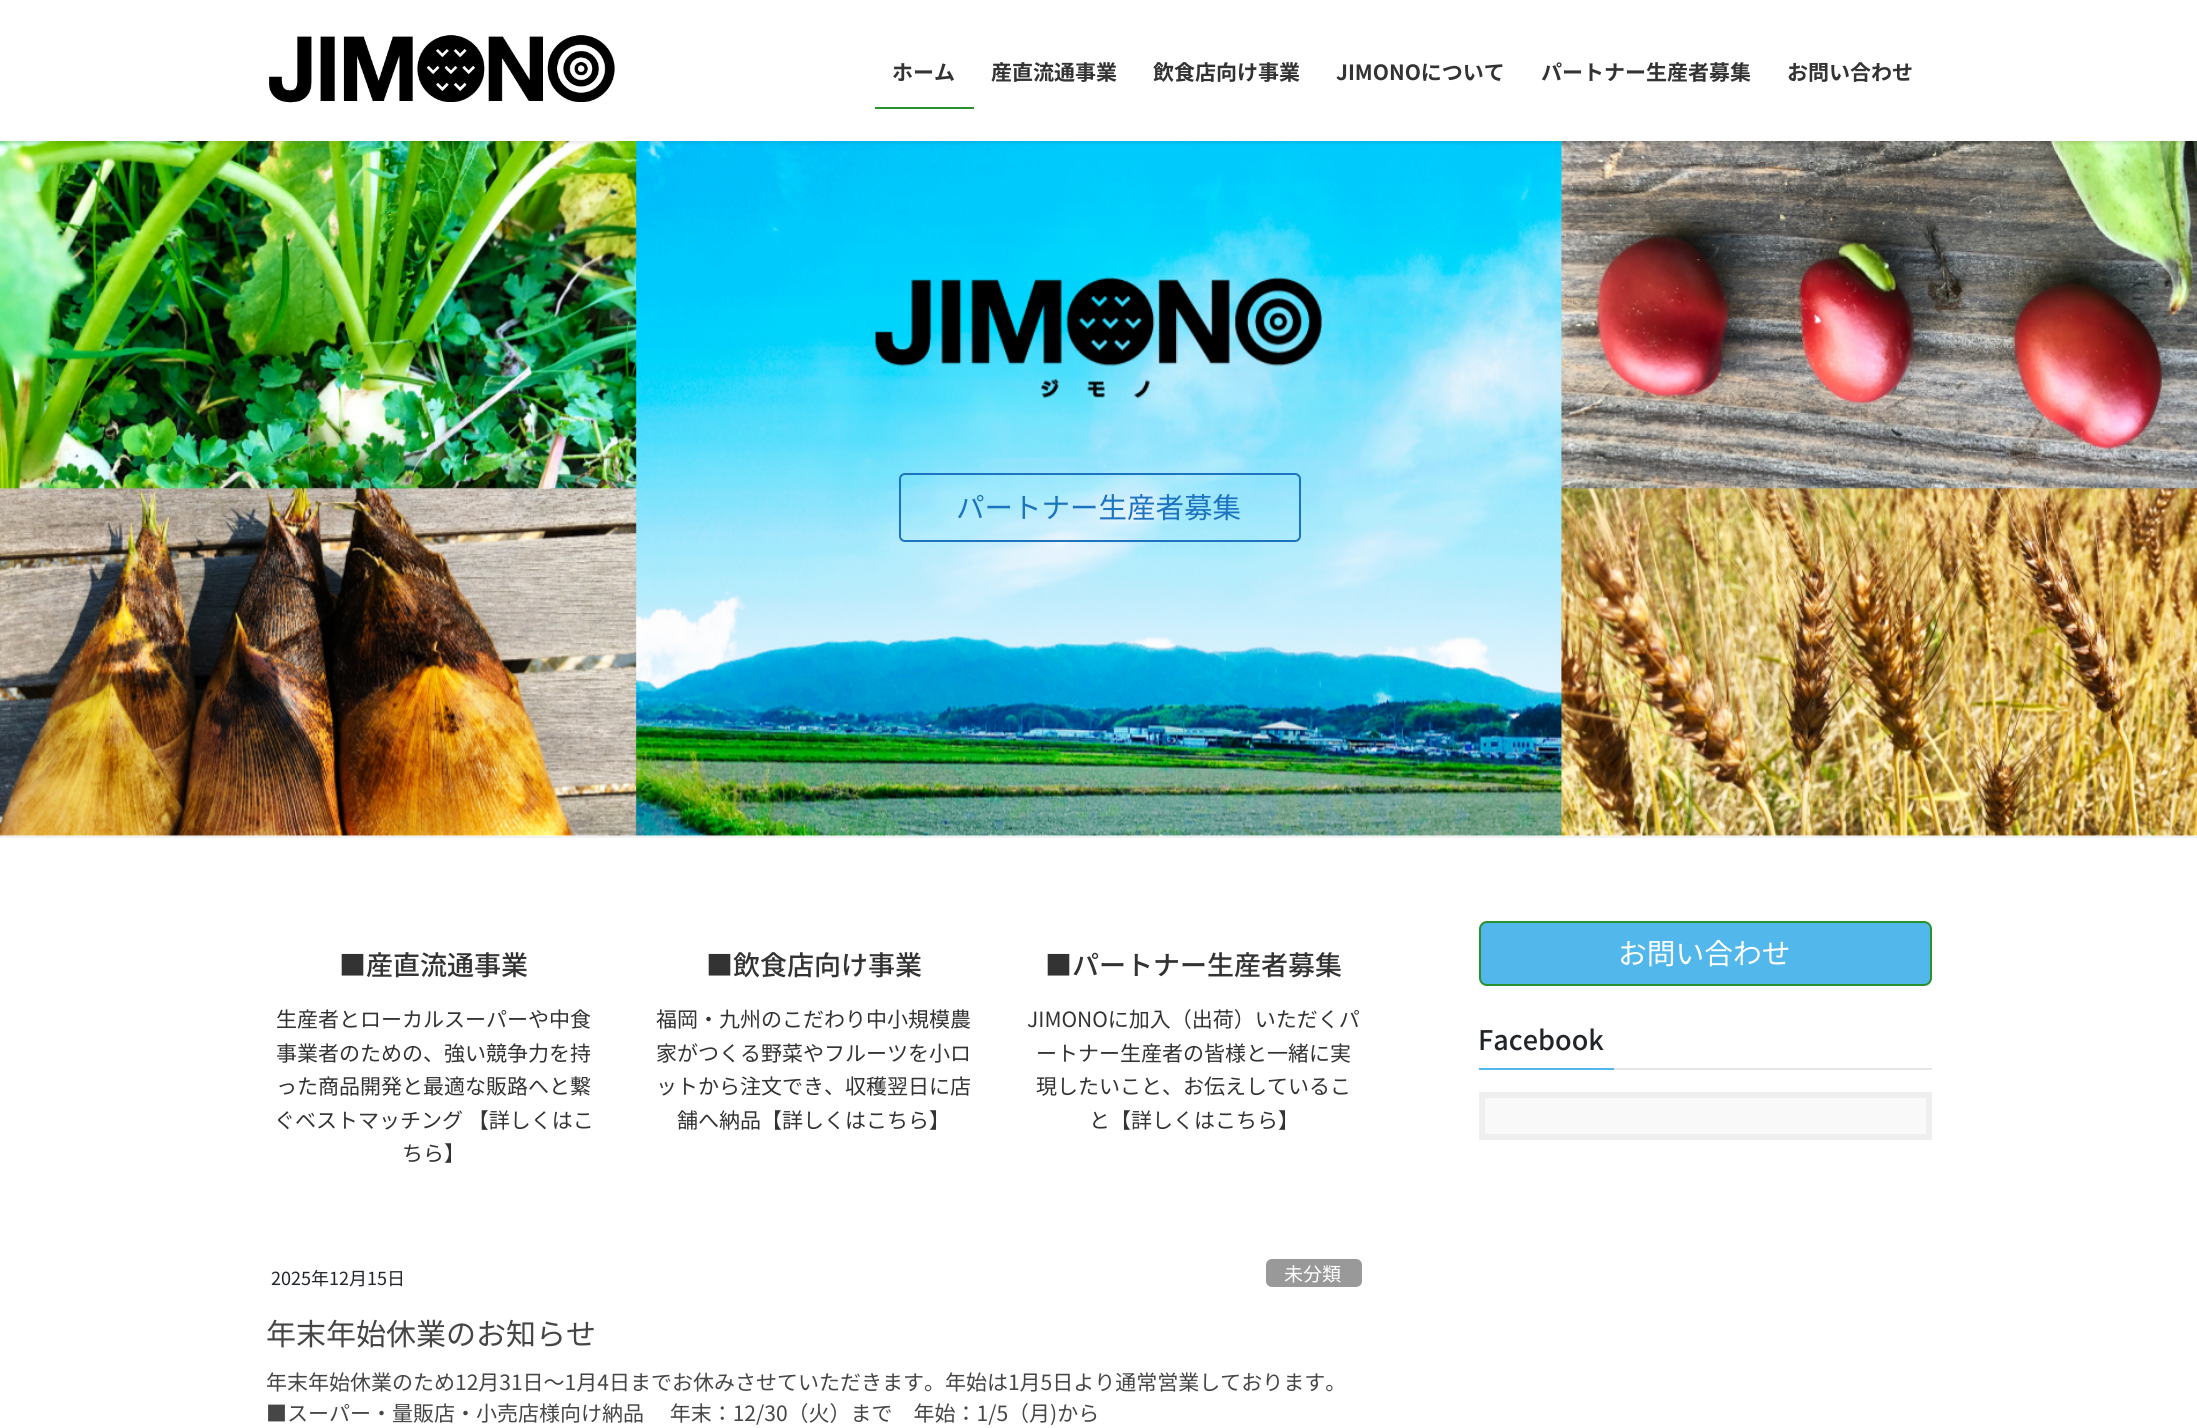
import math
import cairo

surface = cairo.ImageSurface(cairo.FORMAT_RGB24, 2197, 1428)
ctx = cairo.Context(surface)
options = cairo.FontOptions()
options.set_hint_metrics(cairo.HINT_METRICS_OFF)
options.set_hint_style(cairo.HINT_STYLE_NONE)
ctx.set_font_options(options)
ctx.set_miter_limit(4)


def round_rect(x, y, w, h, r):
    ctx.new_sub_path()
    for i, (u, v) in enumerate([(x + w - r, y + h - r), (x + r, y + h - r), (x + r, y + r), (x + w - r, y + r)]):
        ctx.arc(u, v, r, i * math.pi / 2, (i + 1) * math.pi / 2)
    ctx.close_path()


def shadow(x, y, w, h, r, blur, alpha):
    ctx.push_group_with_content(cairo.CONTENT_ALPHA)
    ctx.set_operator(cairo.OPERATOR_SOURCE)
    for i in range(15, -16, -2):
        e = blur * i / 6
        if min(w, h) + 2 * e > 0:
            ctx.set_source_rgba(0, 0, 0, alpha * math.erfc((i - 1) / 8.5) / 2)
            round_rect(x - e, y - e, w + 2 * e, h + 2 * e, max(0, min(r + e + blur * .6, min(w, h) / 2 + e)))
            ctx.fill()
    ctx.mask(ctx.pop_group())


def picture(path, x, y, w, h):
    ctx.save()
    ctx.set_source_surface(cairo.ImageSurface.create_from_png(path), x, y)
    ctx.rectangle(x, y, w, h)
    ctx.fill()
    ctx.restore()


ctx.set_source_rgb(1, 1, 1)
ctx.paint()
picture("img2.png", 0, 141, 2197, 695)
ctx.save()
ctx.rectangle(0, 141, 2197, 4)
ctx.clip()
ctx.set_source_rgb(0, 0, 0)
shadow(0, 2, 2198, 141, 0, 2, 0.1)
ctx.restore()
picture("img1.png", 269, 35, 346, 68)
ctx.select_font_face("Noto Sans JP", cairo.FONT_SLANT_NORMAL, cairo.FONT_WEIGHT_BOLD)
ctx.set_font_size(21)
ctx.set_source_rgb(0.2, 0.2, 0.2)
ctx.move_to(892, 80)
ctx.show_text("ホーム")
ctx.set_source_rgb(0.169, 0.569, 0.176)
ctx.rectangle(875, 107, 99, 2)
ctx.fill()
ctx.set_source_rgb(0.2, 0.2, 0.2)
ctx.move_to(991, 80)
ctx.show_text("産直流通事業")
ctx.move_to(1153, 80)
ctx.show_text("飲食店向け事業")
ctx.move_to(1336, 80)
ctx.show_text("JIMONOについて")
ctx.move_to(1541, 80)
ctx.show_text("パートナー生産者募集")
ctx.move_to(1787, 80)
ctx.show_text("お問い合わせ")
ctx.set_source_rgb(0.949, 0.949, 0.949)
ctx.rectangle(0, 836, 2197, 2)
ctx.fill()
round_rect(900, 474, 400, 67, 5)
ctx.set_source_rgb(0.118, 0.451, 0.745)
ctx.stroke()
ctx.select_font_face("Noto Sans JP")
ctx.set_font_size(28.5)
ctx.move_to(956, 518)
ctx.show_text("パートナー生産者募集")
ctx.select_font_face("Noto Sans JP Medium")
ctx.set_font_size(27)
ctx.set_source_rgb(0.2, 0.2, 0.2)
ctx.move_to(339, 975)
ctx.show_text("■産直流通事業")
ctx.select_font_face("Noto Sans JP")
ctx.set_font_size(21)
ctx.move_to(276, 1027)
ctx.show_text("生産者とローカルスーパーや中食")
ctx.move_to(276, 1061)
ctx.show_text("事業者のための、強い競争力を持")
ctx.move_to(276, 1094)
ctx.show_text("った商品開発と最適な販路へと繋")
ctx.move_to(274, 1128)
ctx.show_text("ぐベストマッチング 【詳しくはこ")
ctx.move_to(402, 1161)
ctx.show_text("ちら】")
ctx.select_font_face("Noto Sans JP Medium")
ctx.set_font_size(27)
ctx.move_to(706, 975)
ctx.show_text("■飲食店向け事業")
ctx.select_font_face("Noto Sans JP")
ctx.set_font_size(21)
ctx.move_to(656, 1027)
ctx.show_text("福岡・九州のこだわり中小規模農")
ctx.move_to(656, 1061)
ctx.show_text("家がつくる野菜やフルーツを小ロ")
ctx.move_to(656, 1094)
ctx.show_text("ットから注文でき、収穫翌日に店")
ctx.move_to(677, 1128)
ctx.show_text("舗へ納品【詳しくはこちら】")
ctx.select_font_face("Noto Sans JP Medium")
ctx.set_font_size(27)
ctx.move_to(1045, 975)
ctx.show_text("■パートナー生産者募集")
ctx.select_font_face("Noto Sans JP")
ctx.set_font_size(21)
ctx.move_to(1027, 1027)
ctx.show_text("JIMONOに加入（出荷）いただくパ")
ctx.move_to(1036, 1061)
ctx.show_text("ートナー生産者の皆様と一緒に実")
ctx.move_to(1036, 1094)
ctx.show_text("現したいこと、お伝えしているこ")
ctx.move_to(1089, 1128)
ctx.show_text("と【詳しくはこちら】")
ctx.set_font_size(18)
ctx.set_source_rgb(0.129, 0.145, 0.161)
ctx.move_to(271, 1285)
ctx.show_text("2025年12月15日")
ctx.set_source_rgb(0.6, 0.6, 0.6)
round_rect(1266, 1259, 96, 28, 6)
ctx.fill()
ctx.set_font_size(19)
ctx.set_source_rgb(1, 1, 1)
ctx.move_to(1284, 1281)
ctx.show_text("未分類")
ctx.set_font_size(30)
ctx.set_source_rgb(0.275, 0.275, 0.275)
ctx.move_to(266, 1345)
ctx.show_text("年末年始休業のお知らせ")
ctx.set_font_size(21)
ctx.move_to(266, 1390)
ctx.show_text("年末年始休業のため12月31日～1月4日までお休みさせていただきます。年始は1月5日より通常営業しております。")
ctx.move_to(266, 1421)
ctx.show_text("■スーパー・量販店・小売店様向け納品　 年末：12/30（火）まで　年始：1/5（月)から")
ctx.set_source_rgb(0.322, 0.718, 0.918)
round_rect(1480, 922, 451, 63, 7)
ctx.fill_preserve()
ctx.set_source_rgb(0.169, 0.569, 0.176)
ctx.stroke()
ctx.set_font_size(28.75)
ctx.set_source_rgb(1, 1, 1)
ctx.move_to(1618, 964)
ctx.show_text("お問い合わせ")
ctx.set_source_rgb(0.902, 0.902, 0.902)
ctx.rectangle(1614, 1068, 318, 2)
ctx.fill()
ctx.select_font_face("Noto Sans JP Medium")
ctx.set_font_size(27)
ctx.set_source_rgb(0.129, 0.145, 0.161)
ctx.move_to(1478, 1050)
ctx.show_text("Facebook")
ctx.set_source_rgb(0.322, 0.718, 0.918)
ctx.rectangle(1479, 1068, 135, 2)
ctx.fill()
ctx.set_source_rgb(0.976, 0.976, 0.976)
ctx.rectangle(1482, 1095, 447, 42)
ctx.fill_preserve()
ctx.set_source_rgb(0.937, 0.937, 0.937)
ctx.set_line_width(6)
ctx.stroke()
surface.write_to_png("page.png")
